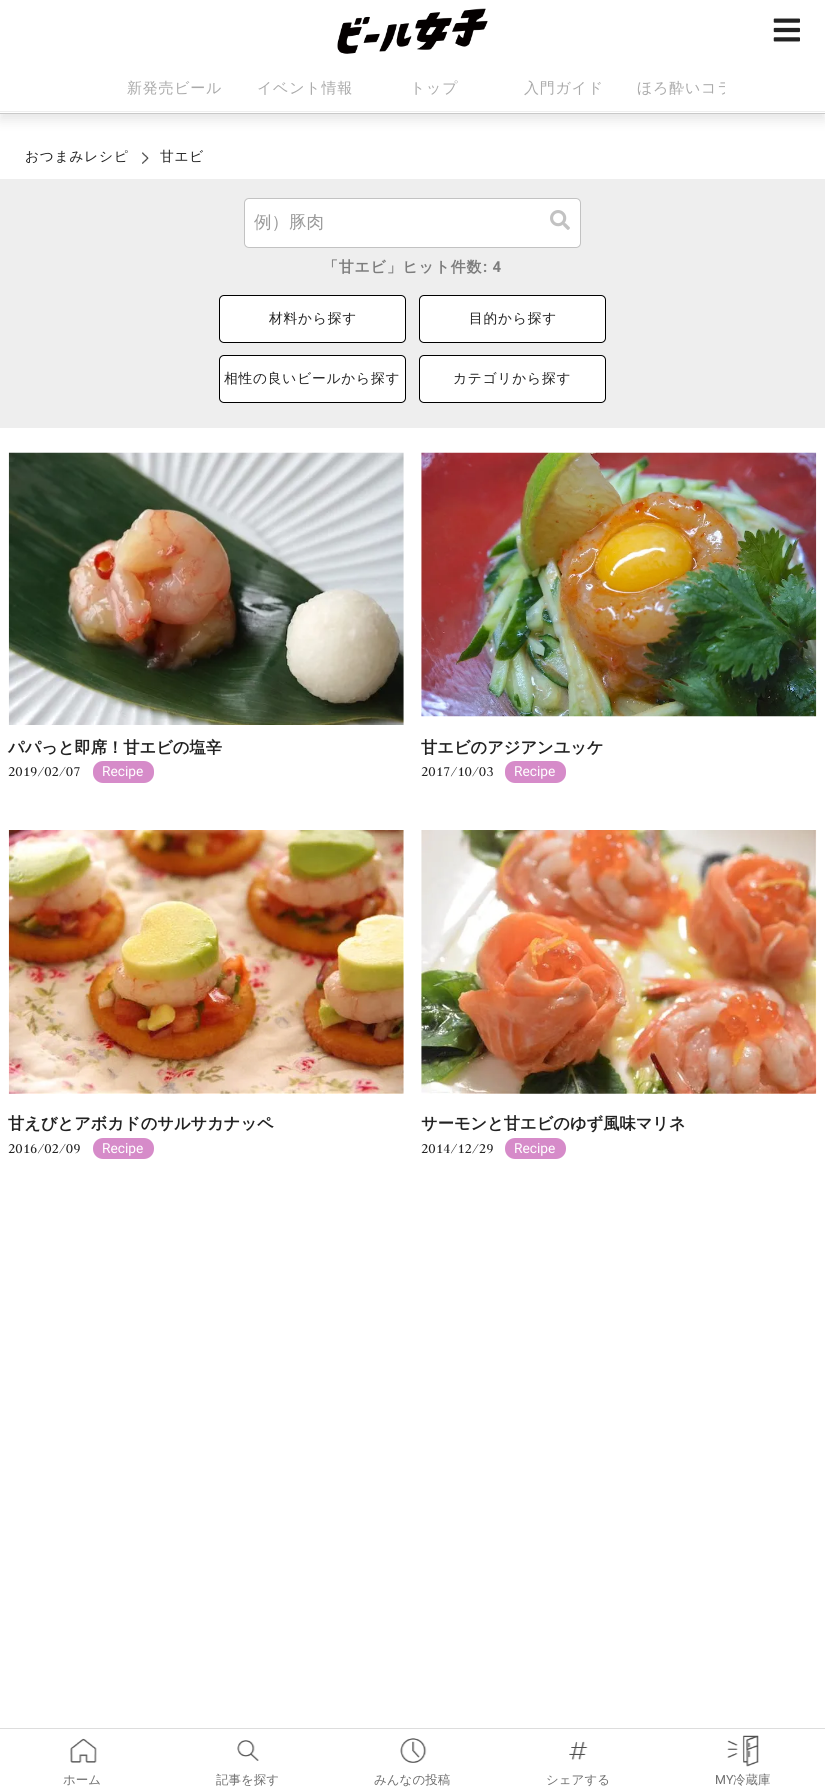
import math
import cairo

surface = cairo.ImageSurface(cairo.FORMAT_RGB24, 825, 1790)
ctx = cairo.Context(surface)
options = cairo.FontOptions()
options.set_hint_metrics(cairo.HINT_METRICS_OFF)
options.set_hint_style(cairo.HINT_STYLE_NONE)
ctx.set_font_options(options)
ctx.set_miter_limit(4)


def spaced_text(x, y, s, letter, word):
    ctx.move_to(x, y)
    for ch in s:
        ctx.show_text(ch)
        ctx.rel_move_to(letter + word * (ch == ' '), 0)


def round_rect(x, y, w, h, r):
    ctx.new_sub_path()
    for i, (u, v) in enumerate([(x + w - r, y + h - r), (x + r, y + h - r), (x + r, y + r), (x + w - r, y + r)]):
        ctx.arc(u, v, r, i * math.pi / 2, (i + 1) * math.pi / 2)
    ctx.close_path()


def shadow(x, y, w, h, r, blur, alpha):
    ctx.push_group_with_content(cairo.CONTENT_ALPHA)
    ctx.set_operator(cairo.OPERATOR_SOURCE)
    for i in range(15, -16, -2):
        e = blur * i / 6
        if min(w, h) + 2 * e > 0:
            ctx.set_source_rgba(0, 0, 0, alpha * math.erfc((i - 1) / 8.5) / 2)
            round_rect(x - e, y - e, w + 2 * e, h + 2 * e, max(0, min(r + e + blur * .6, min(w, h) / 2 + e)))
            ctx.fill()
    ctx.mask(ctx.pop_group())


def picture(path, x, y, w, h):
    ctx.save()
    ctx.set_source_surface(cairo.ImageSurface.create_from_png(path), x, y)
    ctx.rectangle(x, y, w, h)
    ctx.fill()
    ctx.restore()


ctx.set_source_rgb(1, 1, 1)
ctx.paint()
ctx.set_source_rgb(0, 0, 0)
shadow(0, 6, 825, 114, 0, 6, 0.1)
ctx.set_source_rgb(1, 1, 1)
ctx.rectangle(0, 0, 825, 113)
ctx.fill()
ctx.set_source_rgb(0.788, 0.788, 0.788)
ctx.rectangle(0, 113, 825, 1)
ctx.fill()
picture("img1.png", 337, 8, 151, 46)
picture("img2.png", 773, 18, 27, 24)
ctx.set_source_rgb(0.933, 0.933, 0.933)
ctx.rectangle(0, 111, 825, 1)
ctx.fill()
ctx.select_font_face("WenQuanYi Zen Hei Medium")
ctx.set_font_size(15)
ctx.set_source_rgb(0.667, 0.667, 0.667)
spaced_text(127, 93, "新発売ビール", 0.75, 0)
spaced_text(257, 93, "イベント情報", 0.75, 0)
spaced_text(410, 93, "トップ", 0.75, 0)
spaced_text(524, 93, "入門ガイド", 0.75, 0)
ctx.save()
ctx.rectangle(100, 63, 625, 50)
ctx.clip()
spaced_text(637, 93, "ほろ酔いコラ", 0.75, 0)
ctx.restore()
ctx.set_font_size(13.75)
ctx.set_source_rgb(0.133, 0.133, 0.133)
spaced_text(25, 161, "おつまみレシピ", 0.75, 0)
picture("img3.png", 142, 152, 7, 12)
spaced_text(160, 161, "甘エビ", 0.75, 0)
ctx.set_source_rgb(0.933, 0.933, 0.933)
ctx.rectangle(0, 179, 825, 249)
ctx.fill()
ctx.set_source_rgb(1, 1, 1)
round_rect(244.5, 198.5, 336, 49, 4.5)
ctx.fill_preserve()
ctx.set_source_rgb(0.761, 0.761, 0.761)
ctx.set_line_width(1)
ctx.stroke()
ctx.set_font_size(17.5)
ctx.set_source_rgb(0.6, 0.6, 0.6)
ctx.move_to(254, 228)
ctx.show_text("例）豚肉")
picture("img4.png", 550, 210, 20, 20)
ctx.select_font_face("WenQuanYi Zen Hei", cairo.FONT_SLANT_NORMAL, cairo.FONT_WEIGHT_BOLD)
ctx.set_font_size(15)
ctx.set_source_rgb(0.486, 0.486, 0.486)
spaced_text(323, 272, "「甘エビ」ヒット件数", 0.75, 0)
ctx.select_font_face("Roboto", cairo.FONT_SLANT_NORMAL, cairo.FONT_WEIGHT_BOLD)
spaced_text(483, 272, ": 4", 0.75, 0)
ctx.set_source_rgb(1, 1, 1)
round_rect(219.5, 295.5, 186, 47, 4.5)
ctx.fill_preserve()
ctx.set_source_rgb(0, 0, 0)
ctx.stroke()
ctx.select_font_face("WenQuanYi Zen Hei Medium")
ctx.set_font_size(13.75)
ctx.set_source_rgb(0.133, 0.133, 0.133)
spaced_text(269, 323, "材料から探す", 0.75, 0)
ctx.set_source_rgb(1, 1, 1)
round_rect(419.5, 295.5, 186, 47, 4.5)
ctx.fill_preserve()
ctx.set_source_rgb(0, 0, 0)
ctx.stroke()
ctx.set_source_rgb(0.133, 0.133, 0.133)
spaced_text(469, 323, "目的から探す", 0.75, 0)
ctx.set_source_rgb(1, 1, 1)
round_rect(219.5, 355.5, 186, 47, 4.5)
ctx.fill_preserve()
ctx.set_source_rgb(0, 0, 0)
ctx.stroke()
ctx.set_source_rgb(0.133, 0.133, 0.133)
spaced_text(224, 383, "相性の良いビールから探す", 0.75, 0)
ctx.set_source_rgb(1, 1, 1)
round_rect(419.5, 355.5, 186, 47, 4.5)
ctx.fill_preserve()
ctx.set_source_rgb(0, 0, 0)
ctx.stroke()
ctx.set_source_rgb(0.133, 0.133, 0.133)
spaced_text(453, 383, "カテゴリから探す", 0.75, 0)
picture("img5.png", 8, 452, 396, 273)
ctx.select_font_face("WenQuanYi Zen Hei", cairo.FONT_SLANT_NORMAL, cairo.FONT_WEIGHT_BOLD)
ctx.set_font_size(16.25)
ctx.move_to(8, 753)
ctx.show_text("パパっと即席！甘エビの塩辛")
ctx.select_font_face("Judson")
ctx.set_font_size(15)
ctx.move_to(8, 776)
ctx.show_text("2019/02/07")
ctx.set_source_rgb(0.839, 0.545, 0.788)
round_rect(93, 761, 61, 22, 10)
ctx.fill()
ctx.select_font_face("Roboto")
ctx.set_font_size(13.75)
ctx.set_source_rgb(1, 1, 1)
ctx.move_to(102, 776)
ctx.show_text("Recipe")
picture("img6.png", 421, 452, 396, 265)
ctx.select_font_face("WenQuanYi Zen Hei", cairo.FONT_SLANT_NORMAL, cairo.FONT_WEIGHT_BOLD)
ctx.set_font_size(16.25)
ctx.set_source_rgb(0.133, 0.133, 0.133)
ctx.move_to(421, 753)
ctx.show_text("甘エビのアジアンユッケ")
ctx.select_font_face("Judson")
ctx.set_font_size(15)
ctx.move_to(421, 776)
ctx.show_text("2017/10/03")
ctx.set_source_rgb(0.839, 0.545, 0.788)
round_rect(505, 761, 61, 22, 10)
ctx.fill()
ctx.select_font_face("Roboto")
ctx.set_font_size(13.75)
ctx.set_source_rgb(1, 1, 1)
ctx.move_to(514, 776)
ctx.show_text("Recipe")
picture("img7.png", 8, 830, 396, 264)
ctx.select_font_face("WenQuanYi Zen Hei", cairo.FONT_SLANT_NORMAL, cairo.FONT_WEIGHT_BOLD)
ctx.set_font_size(16.25)
ctx.set_source_rgb(0.133, 0.133, 0.133)
ctx.move_to(8, 1129)
ctx.show_text("甘えびとアボカドのサルサカナッペ")
ctx.select_font_face("Judson")
ctx.set_font_size(15)
ctx.move_to(8, 1153)
ctx.show_text("2016/02/09")
ctx.set_source_rgb(0.839, 0.545, 0.788)
round_rect(93, 1138, 61, 21, 10)
ctx.fill()
ctx.select_font_face("Roboto")
ctx.set_font_size(13.75)
ctx.set_source_rgb(1, 1, 1)
ctx.move_to(102, 1153)
ctx.show_text("Recipe")
picture("img8.png", 421, 830, 396, 264)
ctx.select_font_face("WenQuanYi Zen Hei", cairo.FONT_SLANT_NORMAL, cairo.FONT_WEIGHT_BOLD)
ctx.set_font_size(16.25)
ctx.set_source_rgb(0.133, 0.133, 0.133)
ctx.move_to(421, 1129)
ctx.show_text("サーモンと甘エビのゆず風味マリネ")
ctx.select_font_face("Judson")
ctx.set_font_size(15)
ctx.move_to(421, 1153)
ctx.show_text("2014/12/29")
ctx.set_source_rgb(0.839, 0.545, 0.788)
round_rect(505, 1138, 61, 21, 10)
ctx.fill()
ctx.select_font_face("Roboto")
ctx.set_font_size(13.75)
ctx.set_source_rgb(1, 1, 1)
ctx.move_to(514, 1153)
ctx.show_text("Recipe")
ctx.set_source_rgb(0.867, 0.867, 0.867)
ctx.rectangle(0, 1728, 825, 1)
ctx.fill()
picture("img9.png", 70, 1738, 27, 25)
ctx.select_font_face("WenQuanYi Zen Hei Medium")
ctx.set_font_size(12.5)
ctx.set_source_rgb(0.431, 0.431, 0.431)
ctx.move_to(63, 1784)
ctx.show_text("ホーム")
picture("img10.png", 237, 1740, 22, 21)
ctx.move_to(216, 1784)
ctx.show_text("記事を探す")
picture("img11.png", 400, 1738, 27, 25)
ctx.move_to(374, 1784)
ctx.show_text("みんなの投稿")
picture("img12.png", 569, 1741, 19, 19)
ctx.move_to(546, 1784)
ctx.show_text("シェアする")
picture("img13.png", 727, 1735, 32, 32)
ctx.select_font_face("Roboto")
ctx.move_to(715, 1784)
ctx.show_text("MY")
ctx.select_font_face("WenQuanYi Zen Hei Medium")
ctx.move_to(733, 1784)
ctx.show_text("冷蔵庫")
surface.write_to_png("page.png")
